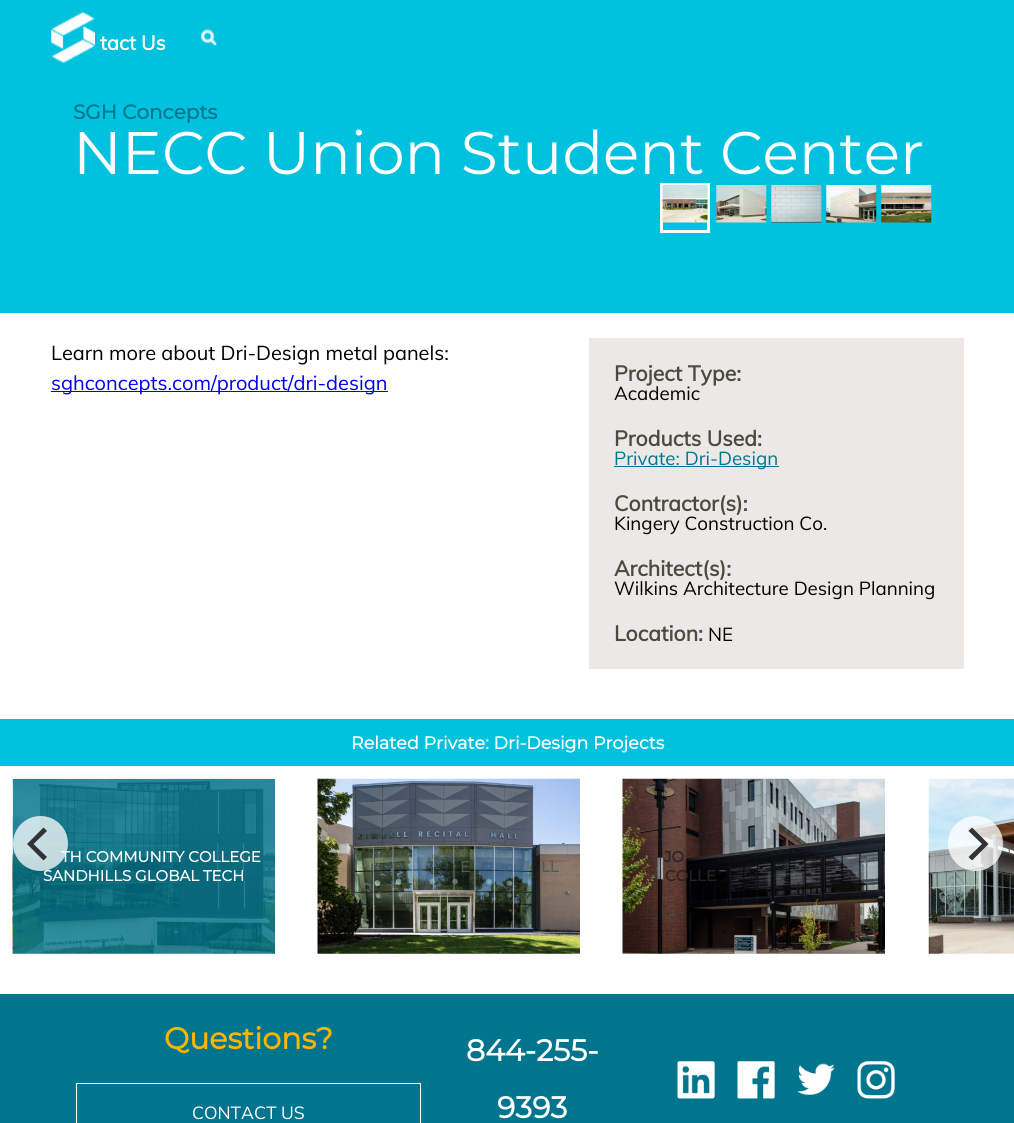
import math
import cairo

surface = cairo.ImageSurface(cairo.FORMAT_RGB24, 1014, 1123)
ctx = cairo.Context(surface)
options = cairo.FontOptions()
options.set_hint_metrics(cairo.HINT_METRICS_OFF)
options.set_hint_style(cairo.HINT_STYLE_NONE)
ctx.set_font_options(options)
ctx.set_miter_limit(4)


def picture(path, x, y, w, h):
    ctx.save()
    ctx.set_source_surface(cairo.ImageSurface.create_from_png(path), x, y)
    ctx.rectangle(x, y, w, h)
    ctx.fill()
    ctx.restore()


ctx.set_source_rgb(1, 1, 1)
ctx.paint()
ctx.set_source_rgb(0, 0.757, 0.871)
ctx.rectangle(0, 0, 1014, 313)
ctx.fill()
picture("img1.png", 51, 12, 44, 51)
ctx.select_font_face("Muli", cairo.FONT_SLANT_NORMAL, cairo.FONT_WEIGHT_BOLD)
ctx.set_font_size(20)
ctx.set_source_rgb(1, 1, 1)
ctx.move_to(100, 50)
ctx.show_text("tact Us")
picture("img2.png", 201, 29, 16, 17)
ctx.select_font_face("Montserrat", cairo.FONT_SLANT_NORMAL, cairo.FONT_WEIGHT_BOLD)
ctx.set_source_rgb(0, 0.459, 0.553)
ctx.move_to(73, 119)
ctx.show_text("SGH Concepts")
ctx.select_font_face("Montserrat Thin")
ctx.set_font_size(60)
ctx.set_source_rgb(1, 1, 1)
ctx.move_to(73, 174)
ctx.show_text("NECC Union Student Center")
ctx.rectangle(661.5, 184.5, 47, 47)
ctx.set_line_width(3)
ctx.stroke()
picture("img3.png", 662, 185, 46, 38)
picture("img4.png", 716, 185, 51, 38)
picture("img5.png", 771, 185, 51, 38)
picture("img6.png", 826, 185, 51, 38)
picture("img7.png", 881, 185, 51, 38)
ctx.select_font_face("Muli")
ctx.set_font_size(20)
ctx.set_source_rgb(0, 0, 0)
ctx.move_to(51, 360)
ctx.show_text("Learn more about Dri-Design metal panels:")
ctx.set_source_rgb(0, 0, 0.933)
ctx.rectangle(51, 391, 337, 1)
ctx.fill()
ctx.move_to(51, 390)
ctx.show_text("sghconcepts.com/product/dri-design")
ctx.set_source_rgb(0.922, 0.91, 0.898)
ctx.rectangle(589, 338, 375, 331)
ctx.fill()
ctx.select_font_face("Muli", cairo.FONT_SLANT_NORMAL, cairo.FONT_WEIGHT_BOLD)
ctx.set_font_size(21.25)
ctx.set_source_rgb(0.298, 0.282, 0.267)
ctx.move_to(614, 381)
ctx.show_text("Project Type:")
ctx.select_font_face("Muli")
ctx.set_font_size(18.75)
ctx.set_source_rgb(0, 0, 0)
ctx.move_to(614, 400)
ctx.show_text("Academic")
ctx.select_font_face("Muli", cairo.FONT_SLANT_NORMAL, cairo.FONT_WEIGHT_BOLD)
ctx.set_font_size(21.25)
ctx.set_source_rgb(0.298, 0.282, 0.267)
ctx.move_to(614, 446)
ctx.show_text("Products Used:")
ctx.set_source_rgb(0, 0.459, 0.553)
ctx.rectangle(614, 466, 165, 1)
ctx.fill()
ctx.select_font_face("Muli")
ctx.set_font_size(18.75)
ctx.move_to(614, 465)
ctx.show_text("Private: Dri-Design")
ctx.select_font_face("Muli", cairo.FONT_SLANT_NORMAL, cairo.FONT_WEIGHT_BOLD)
ctx.set_font_size(21.25)
ctx.set_source_rgb(0.298, 0.282, 0.267)
ctx.move_to(614, 511)
ctx.show_text("Contractor(s):")
ctx.select_font_face("Muli")
ctx.set_font_size(18.75)
ctx.set_source_rgb(0, 0, 0)
ctx.move_to(614, 530)
ctx.show_text("Kingery Construction Co.")
ctx.select_font_face("Muli", cairo.FONT_SLANT_NORMAL, cairo.FONT_WEIGHT_BOLD)
ctx.set_font_size(21.25)
ctx.set_source_rgb(0.298, 0.282, 0.267)
ctx.move_to(614, 576)
ctx.show_text("Architect(s):")
ctx.select_font_face("Muli")
ctx.set_font_size(18.75)
ctx.set_source_rgb(0, 0, 0)
ctx.move_to(614, 595)
ctx.show_text("Wilkins Architecture Design Planning")
ctx.select_font_face("Muli", cairo.FONT_SLANT_NORMAL, cairo.FONT_WEIGHT_BOLD)
ctx.set_font_size(21.25)
ctx.set_source_rgb(0.298, 0.282, 0.267)
ctx.move_to(614, 641)
ctx.show_text("Location:")
ctx.select_font_face("Muli")
ctx.set_font_size(18.75)
ctx.set_source_rgb(0, 0, 0)
ctx.move_to(708, 641)
ctx.show_text("NE")
ctx.set_source_rgb(0, 0.757, 0.871)
ctx.rectangle(0, 719, 1014, 47)
ctx.fill()
ctx.select_font_face("Montserrat", cairo.FONT_SLANT_NORMAL, cairo.FONT_WEIGHT_BOLD)
ctx.set_font_size(17.5)
ctx.set_source_rgb(1, 1, 1)
ctx.move_to(351, 749)
ctx.show_text("Related Private: Dri-Design Projects")
picture("img8.png", 12, 778, 263, 176)
ctx.set_font_size(15)
ctx.move_to(61, 862)
ctx.show_text("TH COMMUNITY COLLEGE")
ctx.move_to(43, 881)
ctx.show_text("SANDHILLS GLOBAL TECH")
ctx.set_source_rgba(1, 1, 1, 0.75)
ctx.new_path()
ctx.arc(40.5, 843.5, 27.5, 0, 2 * math.pi)
ctx.fill()
ctx.set_source_rgb(0.2, 0.2, 0.2)
ctx.new_path()
ctx.move_to(27, 844)
ctx.line_to(43.5, 860.5)
ctx.line_to(47, 857)
ctx.line_to(33.5, 844)
ctx.line_to(47, 831)
ctx.line_to(43.5, 827.5)
ctx.close_path()
ctx.fill()
picture("img9.png", 317, 778, 263, 176)
ctx.set_source_rgb(0.298, 0.357, 0.357)
ctx.move_to(460, 872)
ctx.show_text("E")
ctx.move_to(541, 872)
ctx.show_text("LL")
picture("img10.png", 622, 778, 263, 176)
ctx.set_source_rgb(0.153, 0.129, 0.137)
ctx.move_to(664, 862)
ctx.show_text("JO")
ctx.move_to(665, 881)
ctx.show_text("COLLE")
picture("img11.png", 928, 778, 86, 176)
ctx.set_source_rgba(1, 1, 1, 0.75)
ctx.arc(975.5, 843.5, 27.5, 0, 2 * math.pi)
ctx.fill()
ctx.save()
ctx.rectangle(959, 828, 32, 32)
ctx.clip()
ctx.set_source_rgb(0.2, 0.2, 0.2)
ctx.new_path()
ctx.move_to(988.5, 844)
ctx.line_to(972, 827.5)
ctx.line_to(968.5, 831)
ctx.line_to(982, 844)
ctx.line_to(968.5, 857)
ctx.line_to(972, 860.5)
ctx.close_path()
ctx.fill()
ctx.restore()
ctx.set_source_rgb(0, 0.459, 0.553)
ctx.rectangle(0, 994, 1014, 129)
ctx.fill()
ctx.set_font_size(30)
ctx.set_source_rgb(1, 0.714, 0)
ctx.move_to(164, 1049)
ctx.show_text("Questions?")
ctx.rectangle(76.5, 1083.5, 344, 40)
ctx.set_source_rgb(1, 1, 1)
ctx.set_line_width(1)
ctx.stroke()
ctx.select_font_face("Muli")
ctx.set_font_size(17.5)
ctx.move_to(192, 1119)
ctx.show_text("CONTACT US")
ctx.select_font_face("Montserrat", cairo.FONT_SLANT_NORMAL, cairo.FONT_WEIGHT_BOLD)
ctx.set_font_size(30)
ctx.move_to(466, 1061)
ctx.show_text("844-255-")
ctx.move_to(497, 1118)
ctx.show_text("9393")
picture("img12.png", 677, 1061, 38, 38)
picture("img13.png", 737, 1061, 38, 38)
picture("img14.png", 797, 1063, 38, 32)
picture("img15.png", 857, 1061, 38, 38)
surface.write_to_png("page.png")
